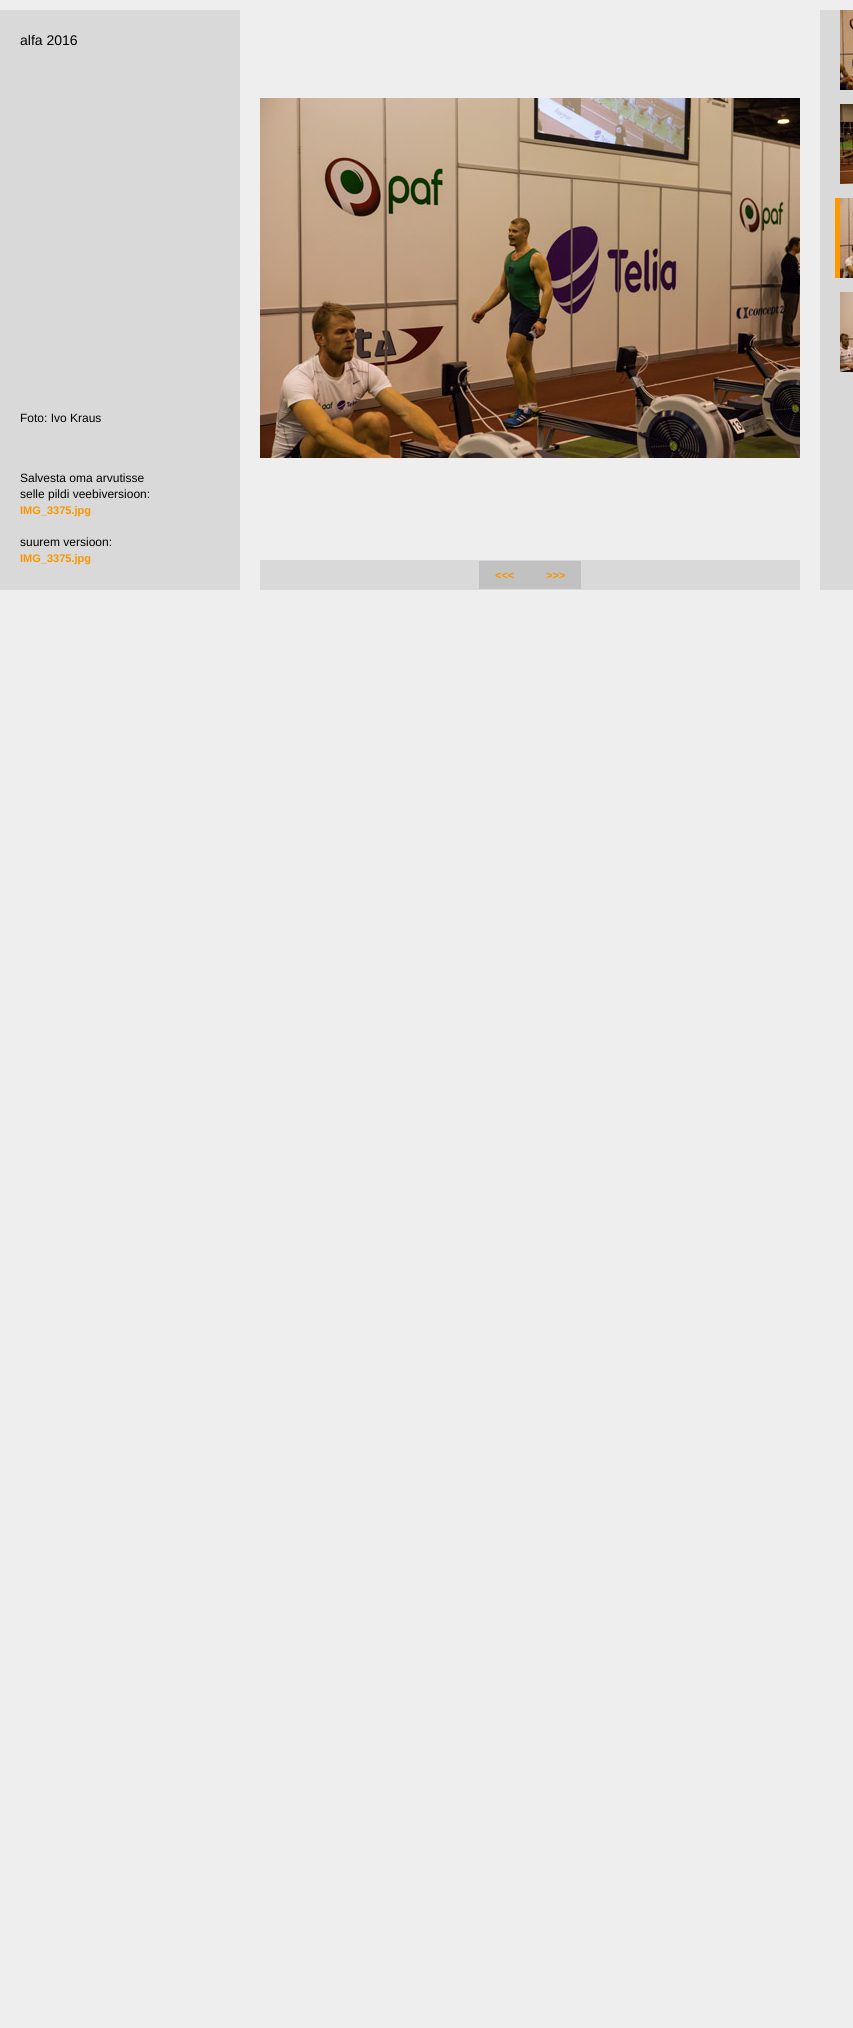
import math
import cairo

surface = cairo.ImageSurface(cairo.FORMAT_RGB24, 853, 2028)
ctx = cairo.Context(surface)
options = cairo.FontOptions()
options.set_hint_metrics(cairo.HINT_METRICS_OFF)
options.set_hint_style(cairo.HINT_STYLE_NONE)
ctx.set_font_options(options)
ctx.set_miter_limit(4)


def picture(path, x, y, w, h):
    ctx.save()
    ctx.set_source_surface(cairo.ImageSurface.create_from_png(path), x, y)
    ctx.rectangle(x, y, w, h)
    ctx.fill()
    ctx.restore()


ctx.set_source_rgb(0.933, 0.933, 0.933)
ctx.paint()
ctx.set_source_rgb(0.851, 0.851, 0.851)
ctx.rectangle(0, 10, 240, 580)
ctx.fill()
ctx.select_font_face("Liberation Sans")
ctx.set_font_size(14)
ctx.set_source_rgb(0, 0, 0)
ctx.move_to(20, 45)
ctx.show_text("alfa 2016")
ctx.set_font_size(12)
ctx.move_to(20, 422)
ctx.show_text("Foto: Ivo Kraus")
ctx.move_to(20, 482)
ctx.show_text("Salvesta oma arvutisse")
ctx.move_to(20, 498)
ctx.show_text("selle pildi veebiversioon:")
ctx.select_font_face("Liberation Sans", cairo.FONT_SLANT_NORMAL, cairo.FONT_WEIGHT_BOLD)
ctx.set_font_size(11)
ctx.set_source_rgb(0.973, 0.584, 0)
ctx.move_to(20, 514)
ctx.show_text("IMG_3375.jpg")
ctx.select_font_face("Liberation Sans")
ctx.set_font_size(12)
ctx.set_source_rgb(0, 0, 0)
ctx.move_to(20, 546)
ctx.show_text("suurem versioon:")
ctx.select_font_face("Liberation Sans", cairo.FONT_SLANT_NORMAL, cairo.FONT_WEIGHT_BOLD)
ctx.set_font_size(11)
ctx.set_source_rgb(0.973, 0.584, 0)
ctx.move_to(20, 562)
ctx.show_text("IMG_3375.jpg")
ctx.set_source_rgb(0.851, 0.851, 0.851)
ctx.rectangle(820, 10, 33, 580)
ctx.fill()
picture("img1.png", 840, 10, 13, 80)
picture("img2.png", 840, 104, 13, 80)
ctx.set_source_rgb(1, 0.6, 0)
ctx.rectangle(835, 198, 5, 80)
ctx.fill()
picture("img3.png", 840, 198, 13, 80)
picture("img4.png", 840, 292, 13, 80)
picture("img5.png", 260, 98, 540, 360)
ctx.set_source_rgb(0.851, 0.851, 0.851)
ctx.rectangle(260, 560, 540, 30)
ctx.fill()
ctx.set_source_rgb(0.757, 0.757, 0.757)
ctx.rectangle(479, 561, 102, 28)
ctx.fill()
ctx.set_source_rgb(0.973, 0.584, 0)
ctx.move_to(495, 579)
ctx.show_text("<<<")
ctx.move_to(546, 579)
ctx.show_text(">>>")
surface.write_to_png("page.png")
